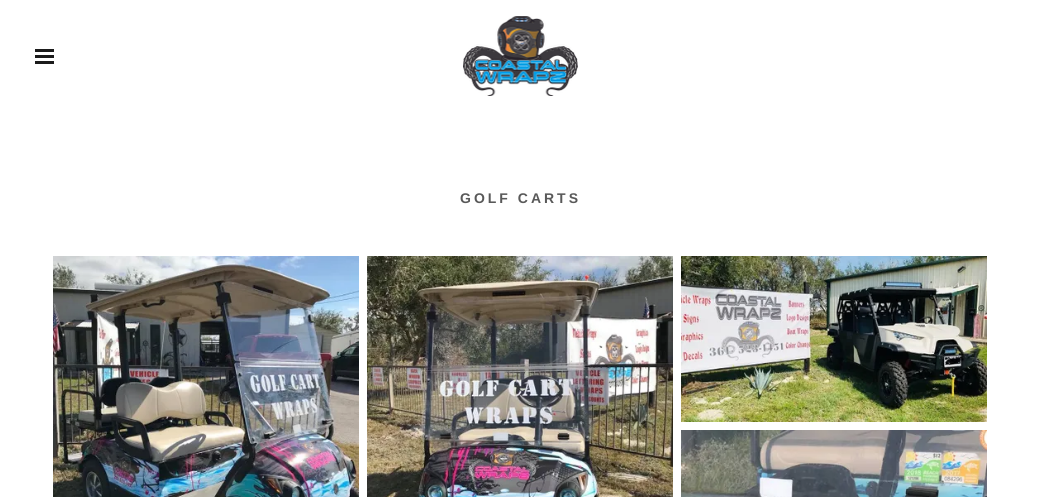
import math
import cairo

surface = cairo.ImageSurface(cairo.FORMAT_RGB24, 1041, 497)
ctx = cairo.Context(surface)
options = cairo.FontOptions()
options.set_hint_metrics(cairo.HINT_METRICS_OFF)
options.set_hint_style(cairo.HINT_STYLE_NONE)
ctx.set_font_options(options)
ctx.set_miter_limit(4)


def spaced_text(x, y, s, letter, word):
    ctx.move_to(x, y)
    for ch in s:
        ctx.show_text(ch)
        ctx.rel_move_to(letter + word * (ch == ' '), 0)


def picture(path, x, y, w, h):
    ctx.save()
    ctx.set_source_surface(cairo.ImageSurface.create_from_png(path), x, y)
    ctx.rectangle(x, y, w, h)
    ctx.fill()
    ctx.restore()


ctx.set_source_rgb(1, 1, 1)
ctx.paint()
ctx.set_source_rgb(0.106, 0.106, 0.106)
ctx.rectangle(35, 49, 19, 3)
ctx.fill()
ctx.rectangle(35, 55, 19, 3)
ctx.fill()
ctx.rectangle(35, 61, 19, 3)
ctx.fill()
picture("img1.png", 463, 16, 115, 80)
ctx.select_font_face("Liberation Sans", cairo.FONT_SLANT_NORMAL, cairo.FONT_WEIGHT_BOLD)
ctx.set_font_size(14)
ctx.set_source_rgb(0.349, 0.349, 0.349)
spaced_text(460, 203, "GOLF CARTS", 3, 0)
picture("img2.png", 53, 256, 306, 241)
picture("img3.png", 367, 256, 306, 241)
picture("img4.png", 681, 256, 306, 166)
picture("img5.png", 681, 430, 306, 67)
surface.write_to_png("page.png")
